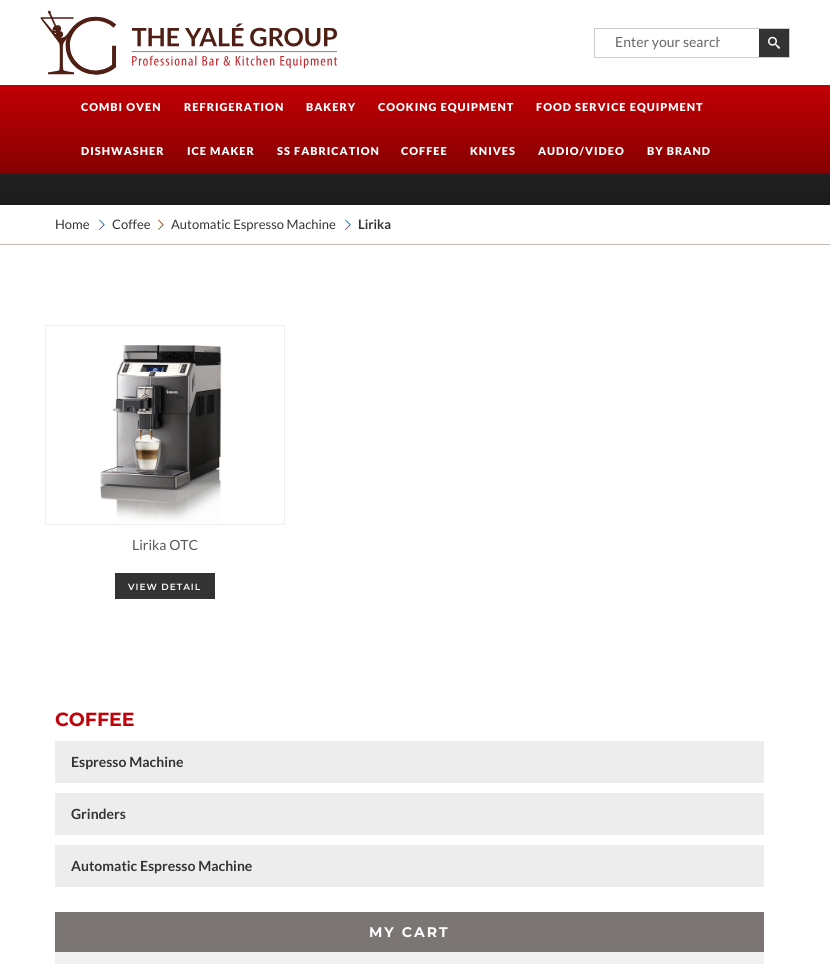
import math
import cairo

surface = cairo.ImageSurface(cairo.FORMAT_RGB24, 830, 964)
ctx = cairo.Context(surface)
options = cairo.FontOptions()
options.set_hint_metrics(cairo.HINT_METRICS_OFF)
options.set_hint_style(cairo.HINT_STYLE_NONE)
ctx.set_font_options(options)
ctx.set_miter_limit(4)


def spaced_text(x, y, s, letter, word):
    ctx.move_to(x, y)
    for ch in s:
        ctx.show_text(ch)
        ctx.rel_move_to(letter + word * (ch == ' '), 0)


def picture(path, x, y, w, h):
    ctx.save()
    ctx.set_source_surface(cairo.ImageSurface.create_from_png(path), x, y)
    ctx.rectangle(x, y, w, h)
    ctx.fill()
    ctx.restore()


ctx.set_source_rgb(1, 1, 1)
ctx.paint()
picture("img1.png", 40, 10, 298, 65)
ctx.rectangle(594.5, 28.5, 195, 29)
ctx.set_source_rgb(0.8, 0.8, 0.8)
ctx.set_line_width(1)
ctx.stroke()
ctx.save()
ctx.rectangle(615, 33, 105, 17)
ctx.clip()
ctx.select_font_face("Lato")
ctx.set_font_size(14)
ctx.set_source_rgb(0.4, 0.4, 0.4)
ctx.move_to(615, 47)
ctx.show_text("Enter your search")
ctx.restore()
ctx.set_source_rgb(0.2, 0.2, 0.2)
ctx.rectangle(759, 29, 30, 28)
ctx.fill()
picture("img2.png", 768, 36, 12, 13)
gradient = cairo.LinearGradient(415, 85, 415, 173)
gradient.add_color_stop_rgba(0, 0.761, 0, 0.024, 1)
gradient.add_color_stop_rgba(1, 0.522, 0, 0, 1)
ctx.set_source(gradient)
ctx.rectangle(0, 85, 830, 88)
ctx.fill()
ctx.select_font_face("Lato Black")
ctx.set_font_size(11)
ctx.set_source_rgb(1, 1, 1)
spaced_text(81, 111, "COMBI OVEN", 1, 0)
spaced_text(184, 111, "REFRIGERATION", 1, 0)
spaced_text(306, 111, "BAKERY", 1, 0)
spaced_text(378, 111, "COOKING EQUIPMENT", 1, 0)
spaced_text(536, 111, "FOOD SERVICE EQUIPMENT", 1, 0)
spaced_text(81, 155, "DISHWASHER", 1, 0)
spaced_text(187, 155, "ICE MAKER", 1, 0)
spaced_text(277, 155, "SS FABRICATION", 1, 0)
spaced_text(401, 155, "COFFEE", 1, 0)
spaced_text(470, 155, "KNIVES", 1, 0)
spaced_text(538, 155, "AUDIO/VIDEO", 1, 0)
spaced_text(647, 155, "BY BRAND", 1, 0)
gradient = cairo.LinearGradient(415, 125, 415, 205)
gradient.add_color_stop_rgba(0, 0.169, 0.169, 0.169, 1)
gradient.add_color_stop_rgba(1, 0.102, 0.102, 0.102, 1)
ctx.set_source(gradient)
ctx.rectangle(0, 173, 830, 32)
ctx.fill()
ctx.set_source_rgb(0.765, 0.725, 0.694)
ctx.rectangle(0, 244, 830, 1)
ctx.fill()
ctx.select_font_face("Lato")
ctx.set_font_size(13)
ctx.set_source_rgb(0.204, 0.204, 0.204)
ctx.move_to(55, 229)
ctx.show_text("Home")
picture("img3.png", 98, 219, 7, 11)
ctx.move_to(112, 229)
ctx.show_text("Coffee")
picture("img3.png", 157, 219, 7, 11)
ctx.move_to(171, 229)
ctx.show_text("Automatic Espresso Machine")
picture("img3.png", 344, 219, 7, 11)
ctx.select_font_face("Lato", cairo.FONT_SLANT_NORMAL, cairo.FONT_WEIGHT_BOLD)
ctx.move_to(358, 229)
ctx.show_text("Lirika")
ctx.rectangle(45.5, 325.5, 239, 199)
ctx.set_source_rgb(0.933, 0.933, 0.933)
ctx.stroke()
picture("img4.png", 100, 345, 122, 177)
ctx.select_font_face("Lato")
ctx.set_font_size(14)
ctx.set_source_rgb(0.345, 0.349, 0.357)
ctx.move_to(132, 550)
ctx.show_text("Lirika OTC")
ctx.set_source_rgb(0.2, 0.2, 0.2)
ctx.rectangle(115, 573, 100, 26)
ctx.fill()
ctx.select_font_face("Montserrat SemiBold")
ctx.set_font_size(9)
ctx.set_source_rgb(1, 1, 1)
spaced_text(128, 590, "VIEW DETAIL", 1, 0)
ctx.select_font_face("Montserrat", cairo.FONT_SLANT_NORMAL, cairo.FONT_WEIGHT_BOLD)
ctx.set_font_size(19)
ctx.set_source_rgb(0.761, 0, 0.031)
ctx.move_to(55, 726)
ctx.show_text("COFFEE")
ctx.set_source_rgb(0.929, 0.929, 0.929)
ctx.rectangle(55, 741, 709, 42)
ctx.fill()
ctx.select_font_face("Lato", cairo.FONT_SLANT_NORMAL, cairo.FONT_WEIGHT_BOLD)
ctx.set_font_size(14)
ctx.set_source_rgb(0.204, 0.204, 0.204)
ctx.move_to(71, 767)
ctx.show_text("Espresso Machine")
ctx.set_source_rgb(0.929, 0.929, 0.929)
ctx.rectangle(55, 793, 709, 42)
ctx.fill()
ctx.set_source_rgb(0.204, 0.204, 0.204)
ctx.move_to(71, 819)
ctx.show_text("Grinders")
ctx.set_source_rgb(0.929, 0.929, 0.929)
ctx.rectangle(55, 845, 709, 42)
ctx.fill()
ctx.set_source_rgb(0.204, 0.204, 0.204)
ctx.move_to(71, 871)
ctx.show_text("Automatic Espresso Machine")
ctx.set_source_rgb(0.949, 0.945, 0.945)
ctx.rectangle(55, 952, 709, 12)
ctx.fill()
ctx.set_source_rgb(0.482, 0.463, 0.451)
ctx.rectangle(55, 912, 709, 40)
ctx.fill()
ctx.select_font_face("Montserrat", cairo.FONT_SLANT_NORMAL, cairo.FONT_WEIGHT_BOLD)
ctx.set_source_rgb(1, 1, 1)
spaced_text(369, 937, "MY CART", 2, 0)
surface.write_to_png("page.png")
